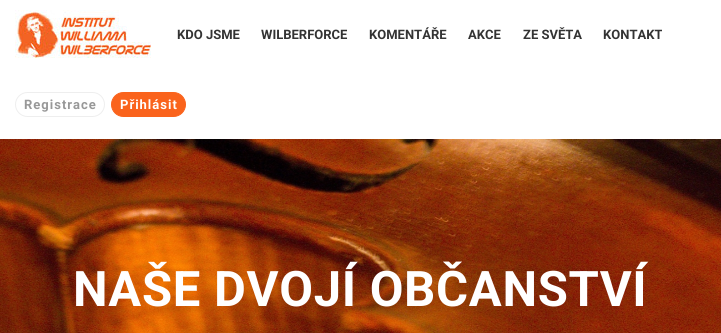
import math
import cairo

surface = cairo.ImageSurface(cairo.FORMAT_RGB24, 721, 333)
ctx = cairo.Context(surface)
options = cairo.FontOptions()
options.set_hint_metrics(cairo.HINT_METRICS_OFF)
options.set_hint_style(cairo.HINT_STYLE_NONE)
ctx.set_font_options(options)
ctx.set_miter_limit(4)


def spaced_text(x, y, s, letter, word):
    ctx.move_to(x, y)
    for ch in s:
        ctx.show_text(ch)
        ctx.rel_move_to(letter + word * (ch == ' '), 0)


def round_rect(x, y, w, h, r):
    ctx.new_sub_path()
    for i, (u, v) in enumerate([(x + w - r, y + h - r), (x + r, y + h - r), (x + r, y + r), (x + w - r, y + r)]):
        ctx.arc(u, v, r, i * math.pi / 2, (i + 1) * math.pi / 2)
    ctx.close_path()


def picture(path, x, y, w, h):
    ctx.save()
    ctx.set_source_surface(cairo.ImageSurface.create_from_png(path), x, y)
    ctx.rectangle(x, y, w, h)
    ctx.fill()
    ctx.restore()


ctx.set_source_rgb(1, 1, 1)
ctx.paint()
picture("img1.png", 15, 10, 136, 48)
ctx.select_font_face("Roboto", cairo.FONT_SLANT_NORMAL, cairo.FONT_WEIGHT_BOLD)
ctx.set_font_size(13)
ctx.set_source_rgb(0.2, 0.2, 0.2)
ctx.move_to(177, 39)
ctx.show_text("KDO JSME")
ctx.move_to(261, 39)
ctx.show_text("WILBERFORCE")
ctx.move_to(369, 39)
ctx.show_text("KOMENTÁŘE")
ctx.move_to(468, 39)
ctx.show_text("AKCE")
ctx.move_to(523, 39)
ctx.show_text("ZE SVĚTA")
ctx.move_to(603, 39)
ctx.show_text("KONTAKT")
round_rect(15.5, 92.5, 89, 24, 12)
ctx.set_source_rgb(0.933, 0.933, 0.933)
ctx.set_line_width(1)
ctx.stroke()
ctx.set_source_rgb(0.596, 0.596, 0.596)
spaced_text(24, 109, "Registrace", 1, 0)
ctx.set_source_rgb(0.98, 0.388, 0.11)
round_rect(111.5, 92.5, 74, 24, 12)
ctx.fill_preserve()
ctx.stroke()
ctx.set_source_rgb(1, 1, 1)
spaced_text(120, 109, "Přihlásit", 1, 0)
picture("img2.png", 0, 139, 721, 194)
ctx.set_font_size(49)
spaced_text(73, 306, "NAŠE DVOJÍ OBČANSTVÍ", 0.7, 0)
surface.write_to_png("page.png")
